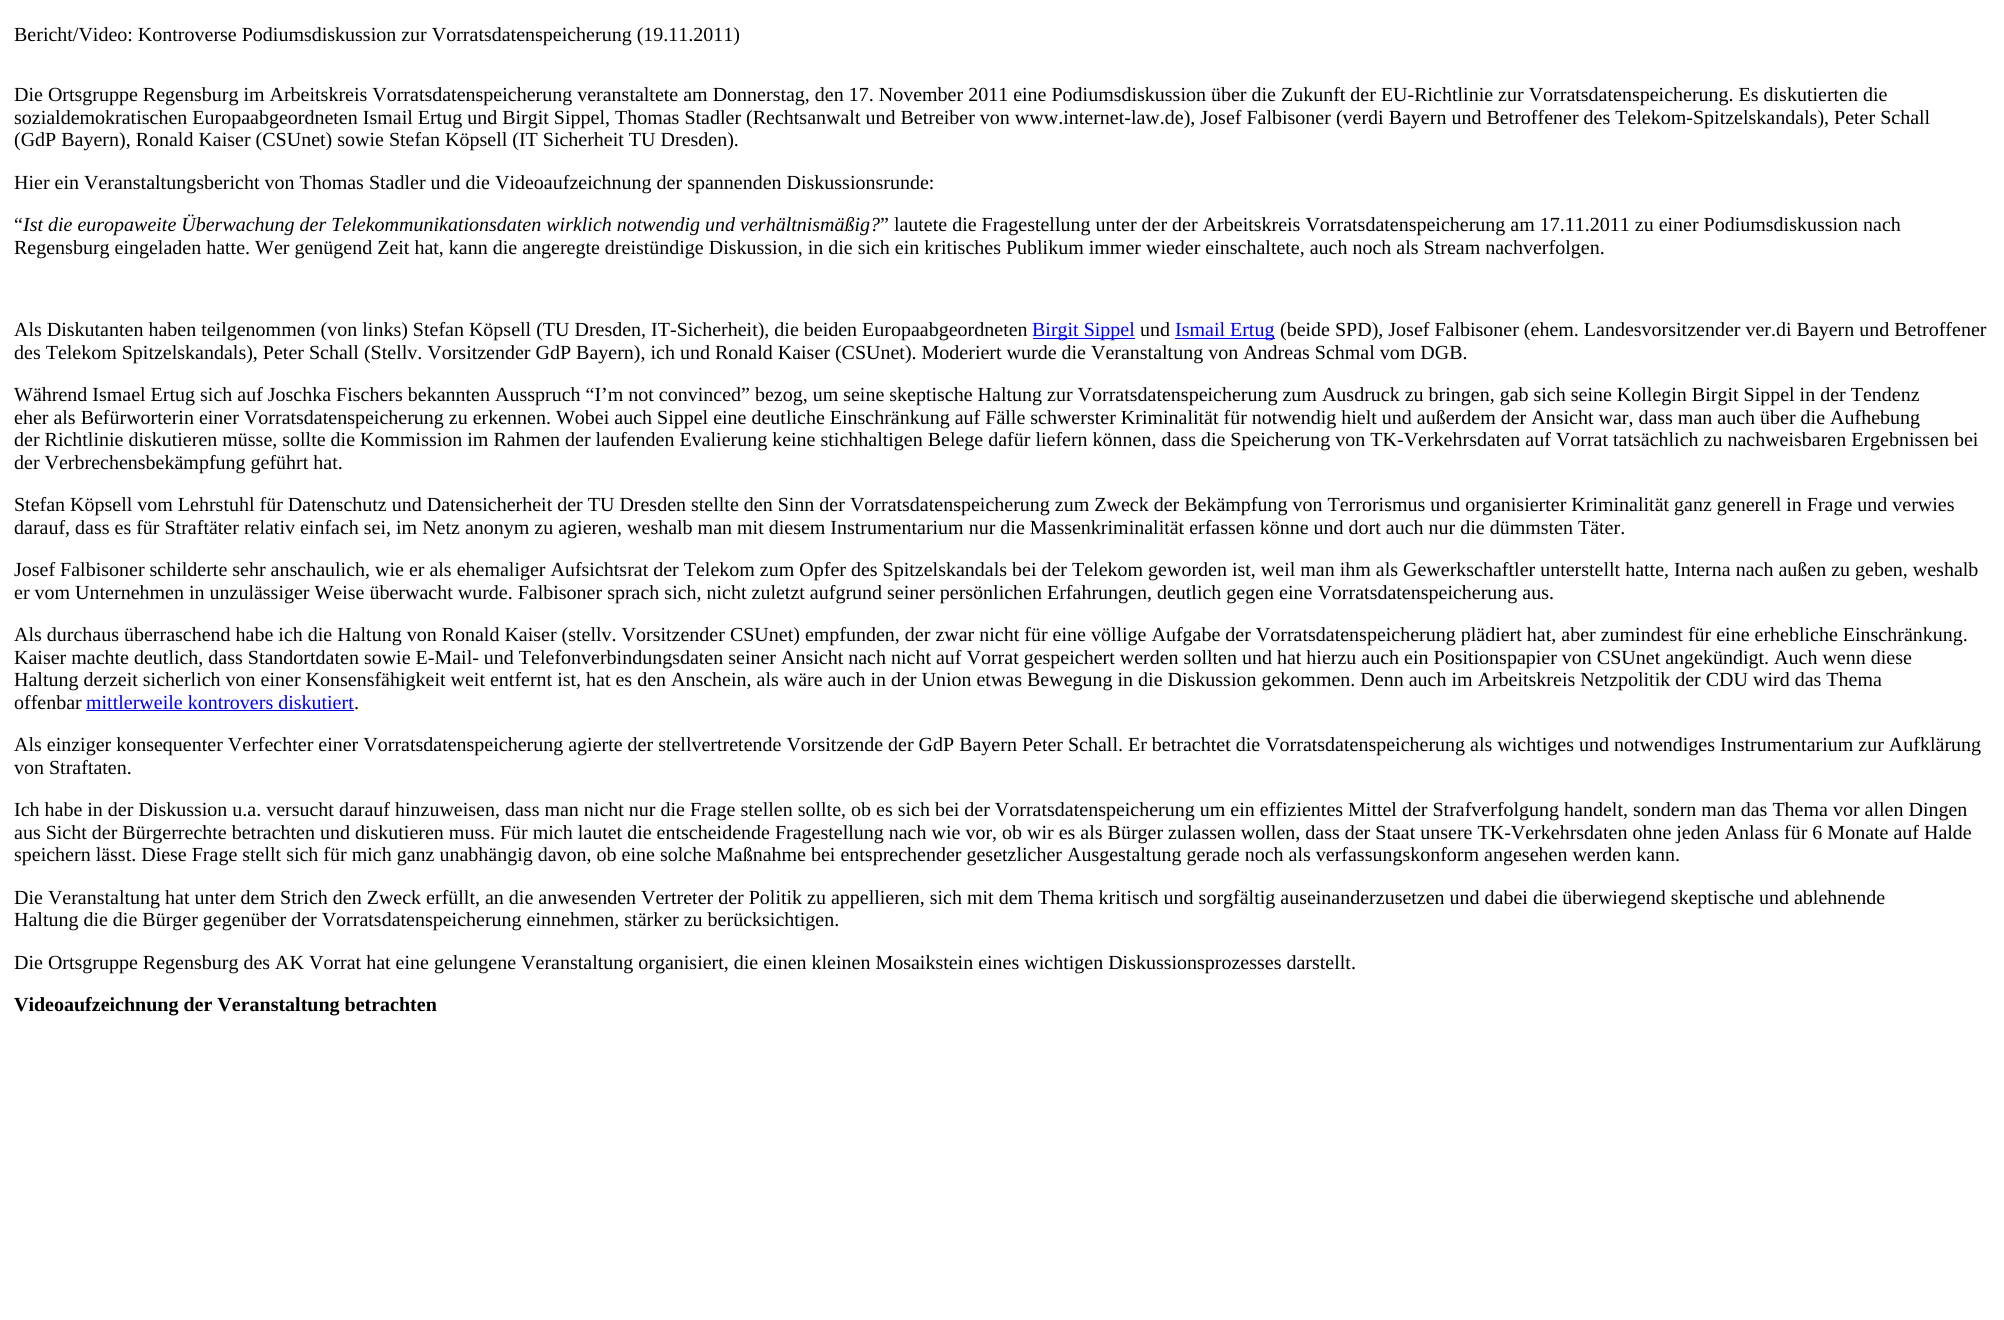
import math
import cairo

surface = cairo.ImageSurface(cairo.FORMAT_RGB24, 2004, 1320)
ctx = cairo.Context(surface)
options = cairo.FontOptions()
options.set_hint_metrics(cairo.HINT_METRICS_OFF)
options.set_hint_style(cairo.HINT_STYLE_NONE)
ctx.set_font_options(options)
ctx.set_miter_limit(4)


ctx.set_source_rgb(1, 1, 1)
ctx.paint()
ctx.select_font_face("Liberation Serif")
ctx.set_font_size(20)
ctx.set_source_rgb(0, 0, 0)
ctx.move_to(14, 41)
ctx.show_text("Bericht/Video: Kontroverse Podiumsdiskussion zur Vorratsdatenspeicherung (19.11.2011)")
ctx.move_to(14, 101)
ctx.show_text("Die Ortsgruppe Regensburg im Arbeitskreis Vorratsdatenspeicherung veranstaltete am Donnerstag, den 17. November 2011 eine Podiumsdiskussion über die Zukunft der EU-Richtlinie zur Vorratsdatenspeicherung. Es diskutierten die")
ctx.move_to(14, 124)
ctx.show_text("sozialdemokratischen Europaabgeordneten Ismail Ertug und Birgit Sippel, Thomas Stadler (Rechtsanwalt und Betreiber von www.internet-law.de), Josef Falbisoner (verdi Bayern und Betroffener des Telekom-Spitzelskandals), Peter Schall")
ctx.move_to(14, 146)
ctx.show_text("(GdP Bayern), Ronald Kaiser (CSUnet) sowie Stefan Köpsell (IT Sicherheit TU Dresden).")
ctx.move_to(14, 189)
ctx.show_text("Hier ein Veranstaltungsbericht von Thomas Stadler und die Videoaufzeichnung der spannenden Diskussionsrunde:")
ctx.move_to(14, 231)
ctx.show_text("“")
ctx.select_font_face("Liberation Serif", cairo.FONT_SLANT_ITALIC)
ctx.move_to(23, 231)
ctx.show_text("Ist die europaweite Überwachung der Telekommunikationsdaten wirklich notwendig und verhältnismäßig?")
ctx.select_font_face("Liberation Serif")
ctx.move_to(880, 231)
ctx.show_text("” lautete die Fragestellung unter der der Arbeitskreis Vorratsdatenspeicherung am 17.11.2011 zu einer Podiumsdiskussion nach")
ctx.move_to(14, 254)
ctx.show_text("Regensburg eingeladen hatte. Wer genügend Zeit hat, kann die angeregte dreistündige Diskussion, in die sich ein kritisches Publikum immer wieder einschaltete, auch noch als Stream nachverfolgen.")
ctx.move_to(14, 336)
ctx.show_text("Als Diskutanten haben teilgenommen (von links) Stefan Köpsell (TU Dresden, IT-Sicherheit), die beiden Europaabgeordneten")
ctx.set_source_rgb(0, 0, 0.933)
ctx.rectangle(1033, 338, 102, 1)
ctx.fill()
ctx.move_to(1032, 336)
ctx.show_text("Birgit Sippel")
ctx.set_source_rgb(0, 0, 0)
ctx.move_to(1140, 336)
ctx.show_text("und")
ctx.set_source_rgb(0, 0, 0.933)
ctx.rectangle(1175, 338, 100, 1)
ctx.fill()
ctx.move_to(1175, 336)
ctx.show_text("Ismail Ertug")
ctx.set_source_rgb(0, 0, 0)
ctx.move_to(1280, 336)
ctx.show_text("(beide SPD), Josef Falbisoner (ehem. Landesvorsitzender ver.di Bayern und Betroffener")
ctx.move_to(14, 359)
ctx.show_text("des Telekom Spitzelskandals), Peter Schall (Stellv. Vorsitzender GdP Bayern), ich und Ronald Kaiser (CSUnet). Moderiert wurde die Veranstaltung von Andreas Schmal vom DGB.")
ctx.move_to(14, 401)
ctx.show_text("Während Ismael Ertug sich auf Joschka Fischers bekannten Ausspruch “I’m not convinced” bezog, um seine skeptische Haltung zur Vorratsdatenspeicherung zum Ausdruck zu bringen, gab sich seine Kollegin Birgit Sippel in der Tendenz")
ctx.move_to(14, 424)
ctx.show_text("eher als Befürworterin einer Vorratsdatenspeicherung zu erkennen. Wobei auch Sippel eine deutliche Einschränkung auf Fälle schwerster Kriminalität für notwendig hielt und außerdem der Ansicht war, dass man auch über die Aufhebung")
ctx.move_to(14, 446)
ctx.show_text("der Richtlinie diskutieren müsse, sollte die Kommission im Rahmen der laufenden Evalierung keine stichhaltigen Belege dafür liefern können, dass die Speicherung von TK-Verkehrsdaten auf Vorrat tatsächlich zu nachweisbaren Ergebnissen bei")
ctx.move_to(14, 469)
ctx.show_text("der Verbrechensbekämpfung geführt hat.")
ctx.move_to(14, 511)
ctx.show_text("Stefan Köpsell vom Lehrstuhl für Datenschutz und Datensicherheit der TU Dresden stellte den Sinn der Vorratsdatenspeicherung zum Zweck der Bekämpfung von Terrorismus und organisierter Kriminalität ganz generell in Frage und verwies")
ctx.move_to(14, 534)
ctx.show_text("darauf, dass es für Straftäter relativ einfach sei, im Netz anonym zu agieren, weshalb man mit diesem Instrumentarium nur die Massenkriminalität erfassen könne und dort auch nur die dümmsten Täter.")
ctx.move_to(14, 576)
ctx.show_text("Josef Falbisoner schilderte sehr anschaulich, wie er als ehemaliger Aufsichtsrat der Telekom zum Opfer des Spitzelskandals bei der Telekom geworden ist, weil man ihm als Gewerkschaftler unterstellt hatte, Interna nach außen zu geben, weshalb")
ctx.move_to(14, 599)
ctx.show_text("er vom Unternehmen in unzulässiger Weise überwacht wurde. Falbisoner sprach sich, nicht zuletzt aufgrund seiner persönlichen Erfahrungen, deutlich gegen eine Vorratsdatenspeicherung aus.")
ctx.move_to(14, 641)
ctx.show_text("Als durchaus überraschend habe ich die Haltung von Ronald Kaiser (stellv. Vorsitzender CSUnet) empfunden, der zwar nicht für eine völlige Aufgabe der Vorratsdatenspeicherung plädiert hat, aber zumindest für eine erhebliche Einschränkung.")
ctx.move_to(14, 664)
ctx.show_text("Kaiser machte deutlich, dass Standortdaten sowie E-Mail- und Telefonverbindungsdaten seiner Ansicht nach nicht auf Vorrat gespeichert werden sollten und hat hierzu auch ein Positionspapier von CSUnet angekündigt. Auch wenn diese")
ctx.move_to(14, 686)
ctx.show_text("Haltung derzeit sicherlich von einer Konsensfähigkeit weit entfernt ist, hat es den Anschein, als wäre auch in der Union etwas Bewegung in die Diskussion gekommen. Denn auch im Arbeitskreis Netzpolitik der CDU wird das Thema")
ctx.move_to(14, 709)
ctx.show_text("offenbar")
ctx.set_source_rgb(0, 0, 0.933)
ctx.move_to(86, 709)
ctx.show_text("mittlerweile kontrovers diskutiert")
ctx.rectangle(86, 710, 268, 1)
ctx.fill()
ctx.set_source_rgb(0, 0, 0)
ctx.move_to(354, 709)
ctx.show_text(".")
ctx.move_to(14, 751)
ctx.show_text("Als einziger konsequenter Verfechter einer Vorratsdatenspeicherung agierte der stellvertretende Vorsitzende der GdP Bayern Peter Schall. Er betrachtet die Vorratsdatenspeicherung als wichtiges und notwendiges Instrumentarium zur Aufklärung")
ctx.move_to(14, 774)
ctx.show_text("von Straftaten.")
ctx.move_to(14, 816)
ctx.show_text("Ich habe in der Diskussion u.a. versucht darauf hinzuweisen, dass man nicht nur die Frage stellen sollte, ob es sich bei der Vorratsdatenspeicherung um ein effizientes Mittel der Strafverfolgung handelt, sondern man das Thema vor allen Dingen")
ctx.move_to(14, 839)
ctx.show_text("aus Sicht der Bürgerrechte betrachten und diskutieren muss. Für mich lautet die entscheidende Fragestellung nach wie vor, ob wir es als Bürger zulassen wollen, dass der Staat unsere TK-Verkehrsdaten ohne jeden Anlass für 6 Monate auf Halde")
ctx.move_to(14, 861)
ctx.show_text("speichern lässt. Diese Frage stellt sich für mich ganz unabhängig davon, ob eine solche Maßnahme bei entsprechender gesetzlicher Ausgestaltung gerade noch als verfassungskonform angesehen werden kann.")
ctx.move_to(14, 904)
ctx.show_text("Die Veranstaltung hat unter dem Strich den Zweck erfüllt, an die anwesenden Vertreter der Politik zu appellieren, sich mit dem Thema kritisch und sorgfältig auseinanderzusetzen und dabei die überwiegend skeptische und ablehnende")
ctx.move_to(14, 926)
ctx.show_text("Haltung die die Bürger gegenüber der Vorratsdatenspeicherung einnehmen, stärker zu berücksichtigen.")
ctx.move_to(14, 969)
ctx.show_text("Die Ortsgruppe Regensburg des AK Vorrat hat eine gelungene Veranstaltung organisiert, die einen kleinen Mosaikstein eines wichtigen Diskussionsprozesses darstellt.")
ctx.select_font_face("Liberation Serif", cairo.FONT_SLANT_NORMAL, cairo.FONT_WEIGHT_BOLD)
ctx.move_to(14, 1011)
ctx.show_text("Videoaufzeichnung der Veranstaltung betrachten")
surface.write_to_png("page.png")
